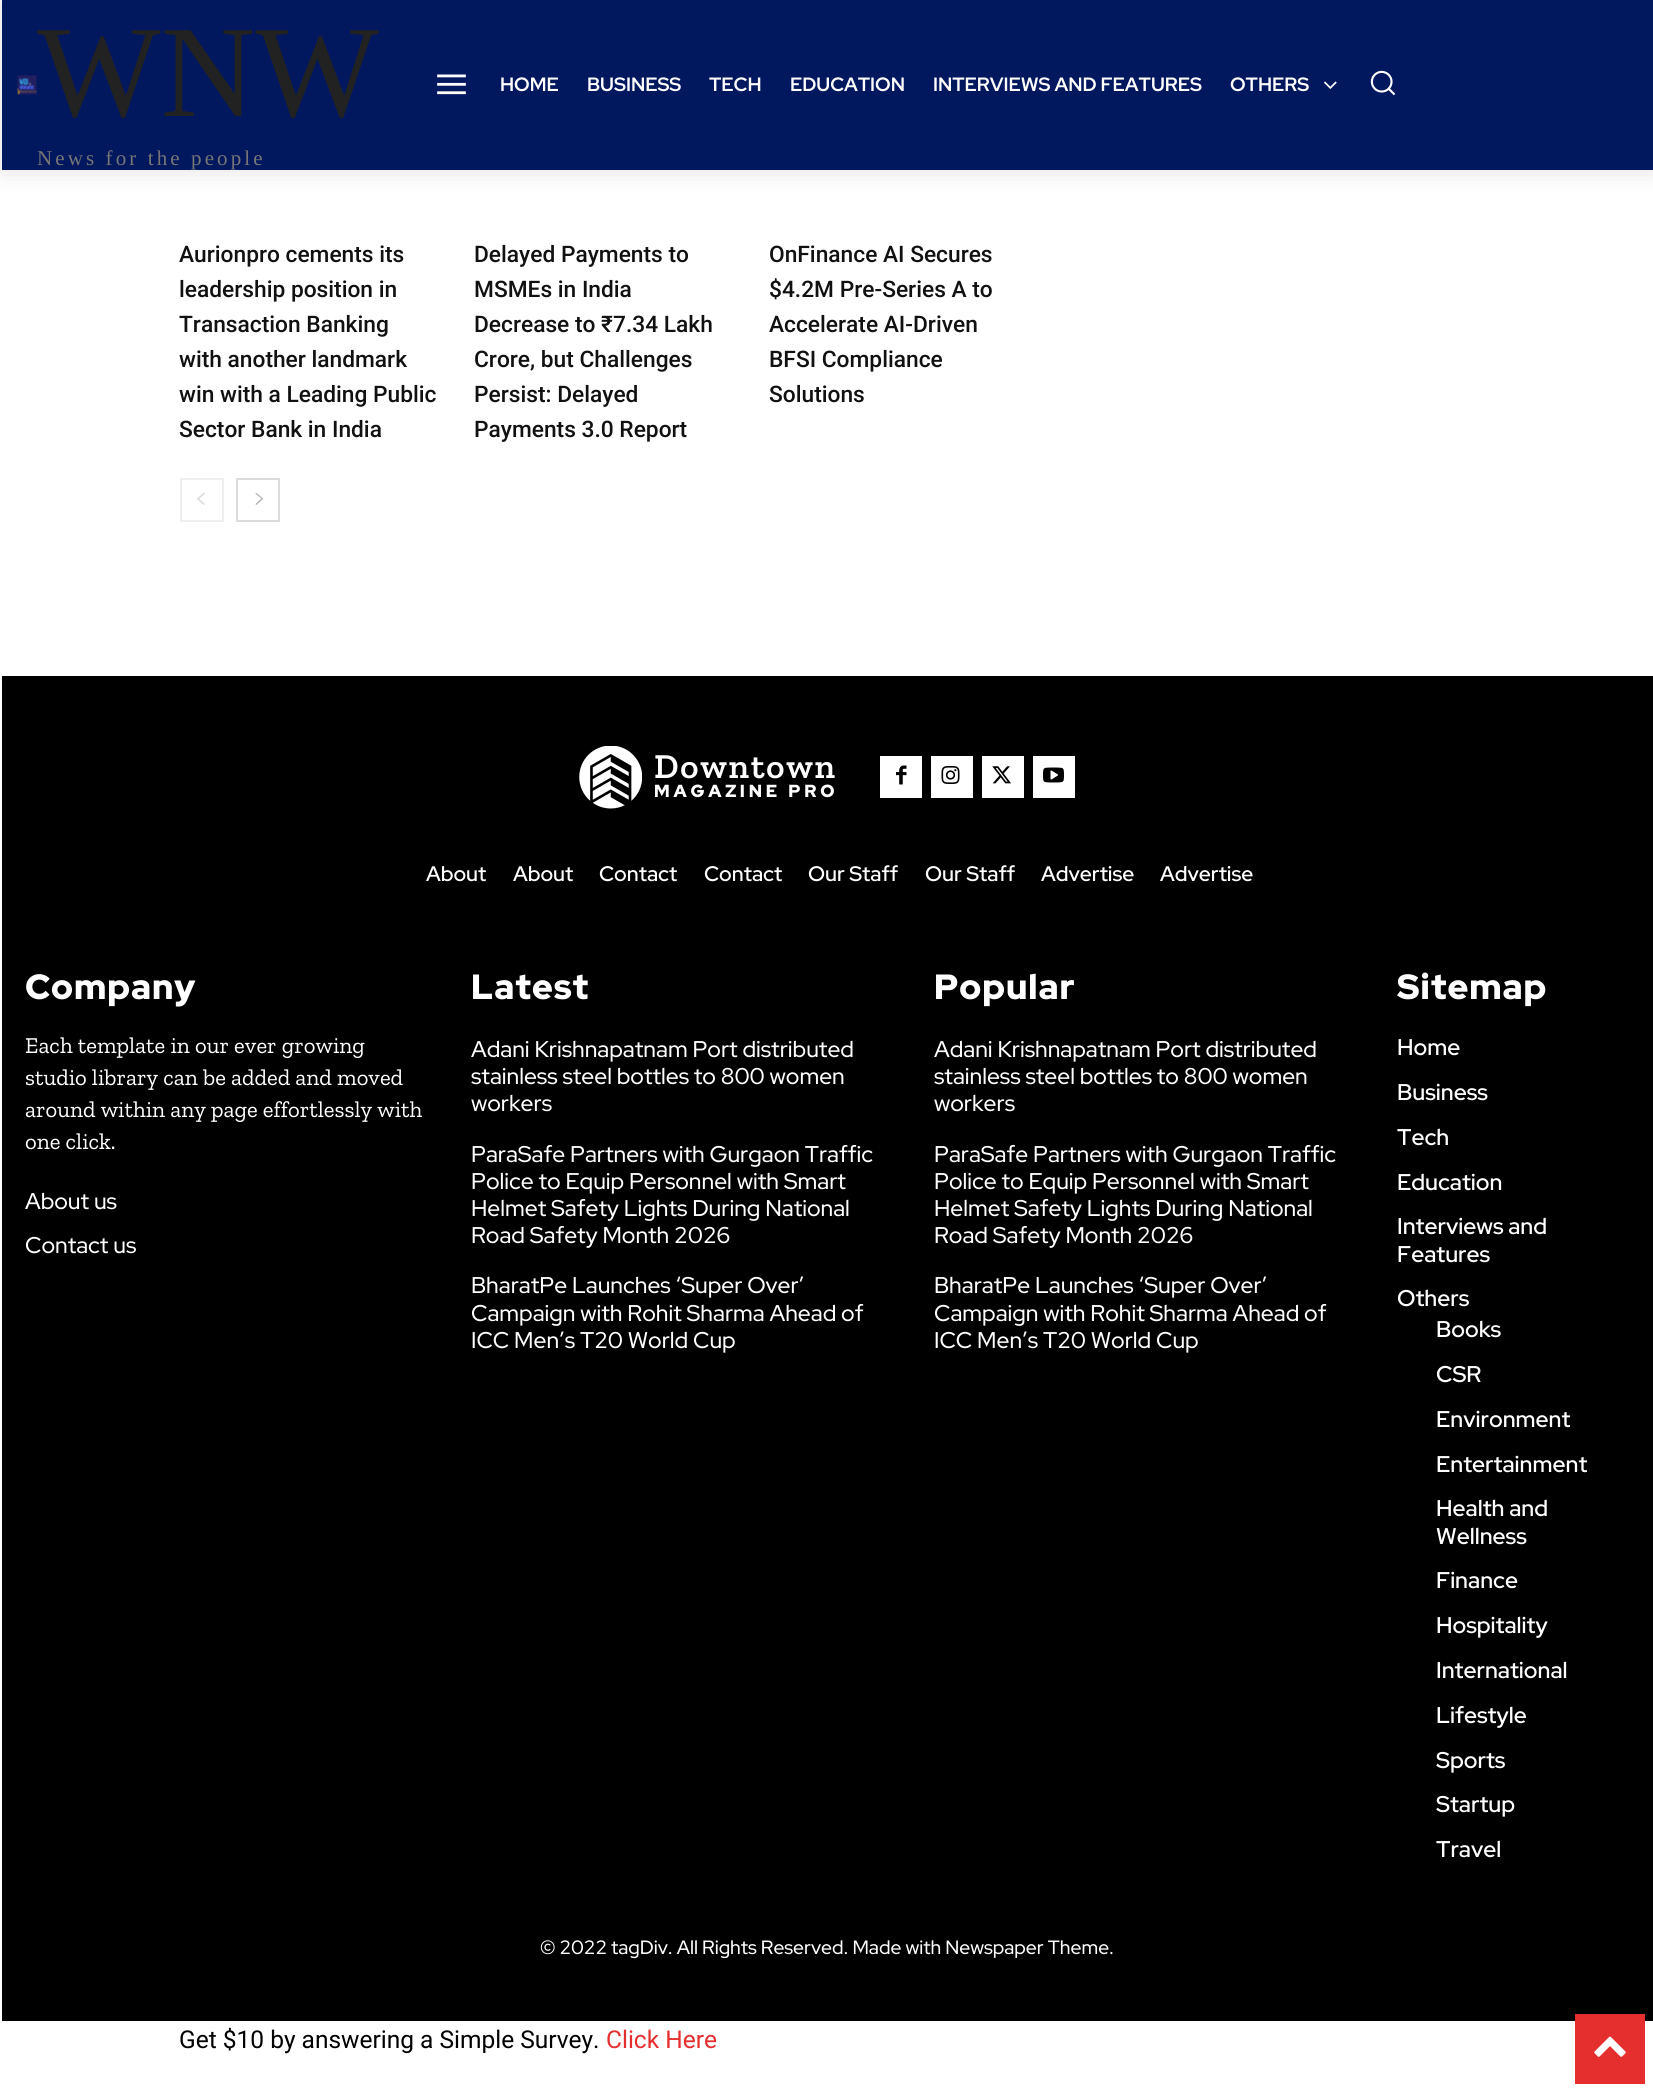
import math
import cairo

surface = cairo.ImageSurface(cairo.FORMAT_RGB24, 1653, 2090)
ctx = cairo.Context(surface)
options = cairo.FontOptions()
options.set_hint_metrics(cairo.HINT_METRICS_OFF)
options.set_hint_style(cairo.HINT_STYLE_NONE)
ctx.set_font_options(options)
ctx.set_miter_limit(4)


def spaced_text(x, y, s, letter, word):
    ctx.move_to(x, y)
    for ch in s:
        ctx.show_text(ch)
        ctx.rel_move_to(letter + word * (ch == ' '), 0)


def round_rect(x, y, w, h, r):
    ctx.new_sub_path()
    for i, (u, v) in enumerate([(x + w - r, y + h - r), (x + r, y + h - r), (x + r, y + r), (x + w - r, y + r)]):
        ctx.arc(u, v, r, i * math.pi / 2, (i + 1) * math.pi / 2)
    ctx.close_path()


def shadow(x, y, w, h, r, blur, alpha):
    ctx.push_group_with_content(cairo.CONTENT_ALPHA)
    ctx.set_operator(cairo.OPERATOR_SOURCE)
    for i in range(15, -16, -2):
        e = blur * i / 6
        if min(w, h) + 2 * e > 0:
            ctx.set_source_rgba(0, 0, 0, alpha * math.erfc((i - 1) / 8.5) / 2)
            round_rect(x - e, y - e, w + 2 * e, h + 2 * e, max(0, min(r + e + blur * .6, min(w, h) / 2 + e)))
            ctx.fill()
    ctx.mask(ctx.pop_group())


def picture(path, x, y, w, h):
    ctx.save()
    ctx.set_source_surface(cairo.ImageSurface.create_from_png(path), x, y)
    ctx.rectangle(x, y, w, h)
    ctx.fill()
    ctx.restore()


ctx.set_source_rgb(1, 1, 1)
ctx.paint()
ctx.set_source_rgb(0.004, 0.09, 0.369)
ctx.rectangle(2, 0, 1651, 170)
ctx.fill()
picture("img1.png", 17, 75, 20, 20)
picture("img2.png", 437, 74, 29, 21)
ctx.save()
ctx.set_fill_rule(cairo.FILL_RULE_EVEN_ODD)
ctx.new_path()
ctx.move_to(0, 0)
ctx.line_to(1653, 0)
ctx.line_to(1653, 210)
ctx.line_to(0, 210)
ctx.close_path()
ctx.move_to(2, 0)
ctx.line_to(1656, 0)
ctx.line_to(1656, 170)
ctx.line_to(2, 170)
ctx.close_path()
ctx.clip()
ctx.set_source_rgb(0, 0, 0)
shadow(2, 0, 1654, 170, 0, 13, 0.12)
ctx.restore()
ctx.select_font_face("Liberation Serif")
ctx.set_font_size(131)
ctx.set_source_rgb(0.133, 0.133, 0.133)
ctx.move_to(37, 116)
ctx.show_text("WNW")
ctx.set_font_size(21)
ctx.set_source_rgb(0.463, 0.463, 0.463)
spaced_text(37, 165, "News for the people", 3.1, 0)
ctx.select_font_face("Red Hat Display", cairo.FONT_SLANT_NORMAL, cairo.FONT_WEIGHT_BOLD)
ctx.set_font_size(19.25)
ctx.set_source_rgb(1, 1, 1)
ctx.move_to(500, 91)
ctx.show_text("HOME")
ctx.move_to(587, 91)
ctx.show_text("BUSINESS")
ctx.move_to(709, 91)
ctx.show_text("TECH")
ctx.move_to(790, 91)
ctx.show_text("EDUCATION")
ctx.move_to(933, 91)
ctx.show_text("INTERVIEWS AND FEATURES")
ctx.move_to(1230, 91)
ctx.show_text("OTHERS")
picture("img3.png", 1324, 81, 13, 8)
picture("img4.png", 1370, 70, 26, 26)
ctx.select_font_face("Roboto Medium")
ctx.set_font_size(22.75)
ctx.set_source_rgb(0.067, 0.067, 0.067)
ctx.move_to(179, 262)
ctx.show_text("Aurionpro cements its")
ctx.move_to(179, 297)
ctx.show_text("leadership position in")
ctx.move_to(179, 332)
ctx.show_text("Transaction Banking")
ctx.move_to(179, 367)
ctx.show_text("with another landmark")
ctx.move_to(179, 402)
ctx.show_text("win with a Leading Public")
ctx.move_to(179, 437)
ctx.show_text("Sector Bank in India")
ctx.move_to(474, 262)
ctx.show_text("Delayed Payments to")
ctx.move_to(474, 297)
ctx.show_text("MSMEs in India")
ctx.move_to(474, 332)
ctx.show_text("Decrease to ₹7.34 Lakh")
ctx.move_to(474, 367)
ctx.show_text("Crore, but Challenges")
ctx.move_to(474, 402)
ctx.show_text("Persist: Delayed")
ctx.move_to(474, 437)
ctx.show_text("Payments 3.0 Report")
ctx.move_to(769, 262)
ctx.show_text("OnFinance AI Secures")
ctx.move_to(769, 297)
ctx.show_text("$4.2M Pre-Series A to")
ctx.move_to(769, 332)
ctx.show_text("Accelerate AI-Driven")
ctx.move_to(769, 367)
ctx.show_text("BFSI Compliance")
ctx.move_to(769, 402)
ctx.show_text("Solutions")
ctx.rectangle(181, 479, 42, 42)
ctx.set_source_rgb(0.933, 0.933, 0.933)
ctx.stroke()
picture("img5.png", 197, 492, 8, 13)
ctx.rectangle(237, 479, 42, 42)
ctx.set_source_rgb(0.863, 0.863, 0.863)
ctx.stroke()
picture("img6.png", 255, 492, 9, 13)
ctx.set_source_rgb(0, 0, 0)
ctx.rectangle(2, 676, 1651, 1345)
ctx.fill()
picture("img7.png", 579, 746, 63, 63)
ctx.select_font_face("Zilla Slab SemiBold")
ctx.set_font_size(35)
ctx.set_source_rgb(1, 1, 1)
spaced_text(654, 778, "Downtown", 1.75, 0)
ctx.select_font_face("Red Hat Display Black")
ctx.set_font_size(17.5)
spaced_text(654, 797, "MAGAZINE PRO", 3.8, 0)
ctx.rectangle(880, 756, 42, 42)
ctx.fill()
picture("img8.png", 896, 765, 11, 20)
ctx.rectangle(931, 756, 42, 42)
ctx.fill()
picture("img9.png", 941, 766, 19, 18)
ctx.rectangle(982, 756, 42, 42)
ctx.fill()
picture("img10.png", 992, 766, 19, 18)
ctx.rectangle(1033, 756, 42, 42)
ctx.fill()
picture("img11.png", 1043, 767, 21, 16)
ctx.select_font_face("Red Hat Display SemiBold")
ctx.set_font_size(21)
ctx.move_to(426, 881)
ctx.show_text("About")
ctx.move_to(513, 881)
ctx.show_text("About")
ctx.move_to(599, 881)
ctx.show_text("Contact")
ctx.move_to(704, 881)
ctx.show_text("Contact")
ctx.move_to(808, 881)
ctx.show_text("Our Staff")
ctx.move_to(925, 881)
ctx.show_text("Our Staff")
ctx.move_to(1041, 881)
ctx.show_text("Advertise")
ctx.move_to(1160, 881)
ctx.show_text("Advertise")
ctx.select_font_face("Red Hat Display Black")
ctx.set_font_size(35)
spaced_text(25, 999, "Company", 1, 0)
ctx.select_font_face("Zilla Slab")
ctx.set_font_size(22.75)
ctx.move_to(25, 1053)
ctx.show_text("Each template in our ever growing")
ctx.move_to(25, 1085)
ctx.show_text("studio library can be added and moved")
ctx.move_to(25, 1117)
ctx.show_text("around within any page effortlessly with")
ctx.move_to(25, 1149)
ctx.show_text("one click.")
ctx.select_font_face("Red Hat Display Medium")
ctx.move_to(25, 1209)
ctx.show_text("About us")
ctx.move_to(25, 1253)
ctx.show_text("Contact us")
ctx.select_font_face("Red Hat Display Black")
ctx.set_font_size(35)
spaced_text(471, 999, "Latest", 1, 0)
ctx.select_font_face("Red Hat Display Medium")
ctx.set_font_size(22.75)
ctx.move_to(471, 1057)
ctx.show_text("Adani Krishnapatnam Port distributed")
ctx.move_to(471, 1084)
ctx.show_text("stainless steel bottles to 800 women")
ctx.move_to(471, 1111)
ctx.show_text("workers")
ctx.move_to(471, 1162)
ctx.show_text("ParaSafe Partners with Gurgaon Traffic")
ctx.move_to(471, 1189)
ctx.show_text("Police to Equip Personnel with Smart")
ctx.move_to(471, 1216)
ctx.show_text("Helmet Safety Lights During National")
ctx.move_to(471, 1243)
ctx.show_text("Road Safety Month 2026")
ctx.move_to(471, 1293)
ctx.show_text("BharatPe Launches ‘Super Over’")
ctx.move_to(471, 1321)
ctx.show_text("Campaign with Rohit Sharma Ahead of")
ctx.move_to(471, 1348)
ctx.show_text("ICC Men’s T20 World Cup")
ctx.select_font_face("Red Hat Display Black")
ctx.set_font_size(35)
spaced_text(934, 999, "Popular", 1, 0)
ctx.select_font_face("Red Hat Display Medium")
ctx.set_font_size(22.75)
ctx.move_to(934, 1057)
ctx.show_text("Adani Krishnapatnam Port distributed")
ctx.move_to(934, 1084)
ctx.show_text("stainless steel bottles to 800 women")
ctx.move_to(934, 1111)
ctx.show_text("workers")
ctx.move_to(934, 1162)
ctx.show_text("ParaSafe Partners with Gurgaon Traffic")
ctx.move_to(934, 1189)
ctx.show_text("Police to Equip Personnel with Smart")
ctx.move_to(934, 1216)
ctx.show_text("Helmet Safety Lights During National")
ctx.move_to(934, 1243)
ctx.show_text("Road Safety Month 2026")
ctx.move_to(934, 1293)
ctx.show_text("BharatPe Launches ‘Super Over’")
ctx.move_to(934, 1321)
ctx.show_text("Campaign with Rohit Sharma Ahead of")
ctx.move_to(934, 1348)
ctx.show_text("ICC Men’s T20 World Cup")
ctx.select_font_face("Red Hat Display Black")
ctx.set_font_size(35)
spaced_text(1397, 999, "Sitemap", 1, 0)
ctx.select_font_face("Red Hat Display SemiBold")
ctx.set_font_size(22.75)
ctx.move_to(1397, 1055)
ctx.show_text("Home")
ctx.move_to(1397, 1100)
ctx.show_text("Business")
ctx.move_to(1397, 1145)
ctx.show_text("Tech")
ctx.move_to(1397, 1190)
ctx.show_text("Education")
ctx.move_to(1397, 1234)
ctx.show_text("Interviews and")
ctx.move_to(1397, 1262)
ctx.show_text("Features")
ctx.move_to(1397, 1306)
ctx.show_text("Others")
ctx.move_to(1436, 1337)
ctx.show_text("Books")
ctx.move_to(1436, 1382)
ctx.show_text("CSR")
ctx.move_to(1436, 1427)
ctx.show_text("Environment")
ctx.move_to(1436, 1472)
ctx.show_text("Entertainment")
ctx.move_to(1436, 1516)
ctx.show_text("Health and")
ctx.move_to(1436, 1544)
ctx.show_text("Wellness")
ctx.move_to(1436, 1588)
ctx.show_text("Finance")
ctx.move_to(1436, 1633)
ctx.show_text("Hospitality")
ctx.move_to(1436, 1678)
ctx.show_text("International")
ctx.move_to(1436, 1723)
ctx.show_text("Lifestyle")
ctx.move_to(1436, 1768)
ctx.show_text("Sports")
ctx.move_to(1436, 1812)
ctx.show_text("Startup")
ctx.move_to(1436, 1857)
ctx.show_text("Travel")
ctx.select_font_face("Red Hat Display Medium")
ctx.set_font_size(19.25)
ctx.move_to(540, 1954)
ctx.show_text("© 2022 tagDiv. All Rights Reserved. Made with Newspaper Theme.")
ctx.select_font_face("Roboto")
ctx.set_font_size(24.5)
ctx.set_source_rgb(0, 0, 0)
ctx.move_to(179, 2048)
ctx.show_text("Get $10 by answering a Simple Survey.")
ctx.set_source_rgb(0.898, 0.18, 0.18)
ctx.move_to(606, 2048)
ctx.show_text("Click Here")
ctx.rectangle(1575, 2014, 70, 70)
ctx.fill()
picture("img12.png", 1594, 2036, 32, 21)
surface.write_to_png("page.png")
